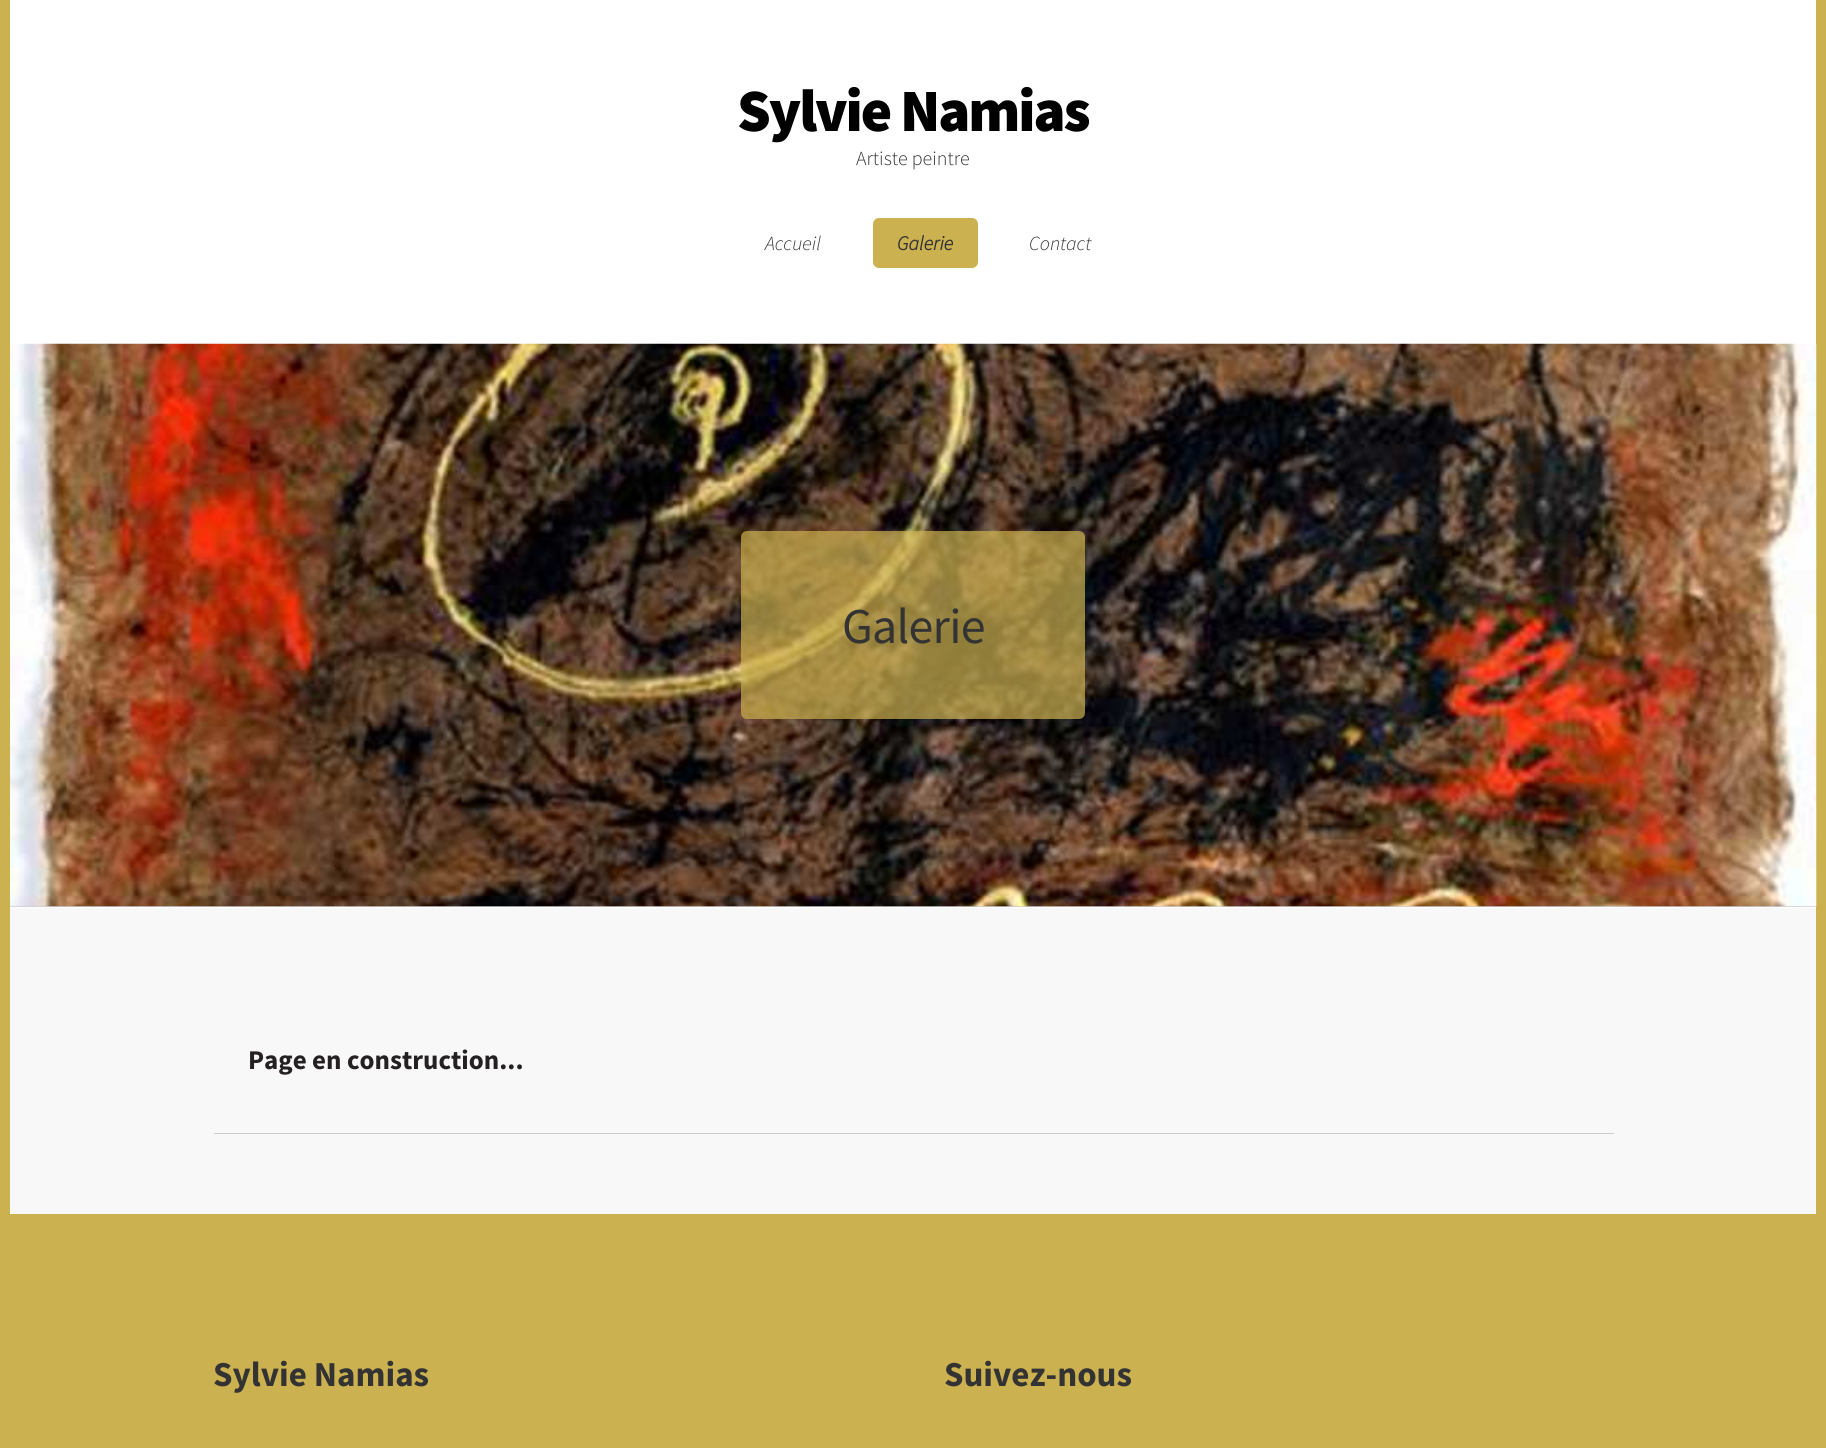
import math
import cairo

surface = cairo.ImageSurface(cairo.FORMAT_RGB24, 1826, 1448)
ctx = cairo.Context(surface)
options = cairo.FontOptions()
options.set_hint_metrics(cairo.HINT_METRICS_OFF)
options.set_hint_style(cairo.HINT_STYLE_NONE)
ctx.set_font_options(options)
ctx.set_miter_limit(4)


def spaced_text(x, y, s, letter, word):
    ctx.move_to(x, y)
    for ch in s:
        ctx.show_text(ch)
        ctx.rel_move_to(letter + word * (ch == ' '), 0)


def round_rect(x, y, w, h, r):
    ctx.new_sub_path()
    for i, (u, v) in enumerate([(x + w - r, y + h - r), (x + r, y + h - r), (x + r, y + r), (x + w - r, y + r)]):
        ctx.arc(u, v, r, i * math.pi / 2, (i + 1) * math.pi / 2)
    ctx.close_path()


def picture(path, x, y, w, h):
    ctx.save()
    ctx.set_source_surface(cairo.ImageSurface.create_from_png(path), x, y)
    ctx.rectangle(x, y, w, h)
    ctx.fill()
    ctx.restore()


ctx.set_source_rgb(0.8, 0.694, 0.314)
ctx.paint()
ctx.set_source_rgb(1, 1, 1)
ctx.rectangle(10, 0, 1806, 908)
ctx.fill()
ctx.set_source_rgb(0.8, 0.8, 0.8)
ctx.rectangle(10, 906, 1806, 1)
ctx.fill()
ctx.select_font_face("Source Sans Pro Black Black")
ctx.set_font_size(60)
ctx.set_source_rgb(0, 0, 0)
spaced_text(737, 131, "Sylvie Namias", -2.1, 0)
ctx.select_font_face("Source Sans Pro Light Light")
ctx.set_font_size(20)
ctx.set_source_rgb(0.2, 0.2, 0.2)
ctx.move_to(856, 165)
ctx.show_text("Artiste peintre")
ctx.select_font_face("Source Sans Pro Light Light", cairo.FONT_SLANT_ITALIC)
ctx.move_to(765, 250)
ctx.show_text("Accueil")
ctx.set_source_rgb(0.8, 0.694, 0.314)
round_rect(873, 218, 105, 50, 6)
ctx.fill()
ctx.select_font_face("Source Sans Pro Light", cairo.FONT_SLANT_ITALIC, cairo.FONT_WEIGHT_BOLD)
ctx.set_source_rgb(0.2, 0.2, 0.2)
ctx.move_to(897, 250)
ctx.show_text("Galerie")
ctx.select_font_face("Source Sans Pro Light Light", cairo.FONT_SLANT_ITALIC)
ctx.move_to(1029, 250)
ctx.show_text("Contact")
picture("img1.png", 10, 343, 1807, 564)
ctx.set_source_rgba(0.8, 0.694, 0.314, 0.7)
round_rect(741, 531, 344, 188, 6)
ctx.fill()
ctx.select_font_face("Source Sans Pro")
ctx.set_font_size(50)
ctx.set_source_rgb(0.2, 0.2, 0.2)
spaced_text(842, 643, "Galerie", -0.75, 0)
ctx.set_source_rgb(0.969, 0.969, 0.969)
ctx.rectangle(10, 908, 1806, 306)
ctx.fill()
ctx.set_source_rgb(0.8, 0.8, 0.8)
ctx.rectangle(214, 1133, 1400, 1)
ctx.fill()
ctx.select_font_face("Source Sans Pro", cairo.FONT_SLANT_NORMAL, cairo.FONT_WEIGHT_BOLD)
ctx.set_font_size(27)
ctx.set_source_rgb(0.145, 0.129, 0.133)
ctx.move_to(248, 1069)
ctx.show_text("Page en construction...")
ctx.set_font_size(35)
ctx.set_source_rgb(0.2, 0.2, 0.2)
ctx.move_to(213, 1386)
ctx.show_text("Sylvie Namias")
ctx.move_to(944, 1386)
ctx.show_text("Suivez-nous")
surface.write_to_png("page.png")
